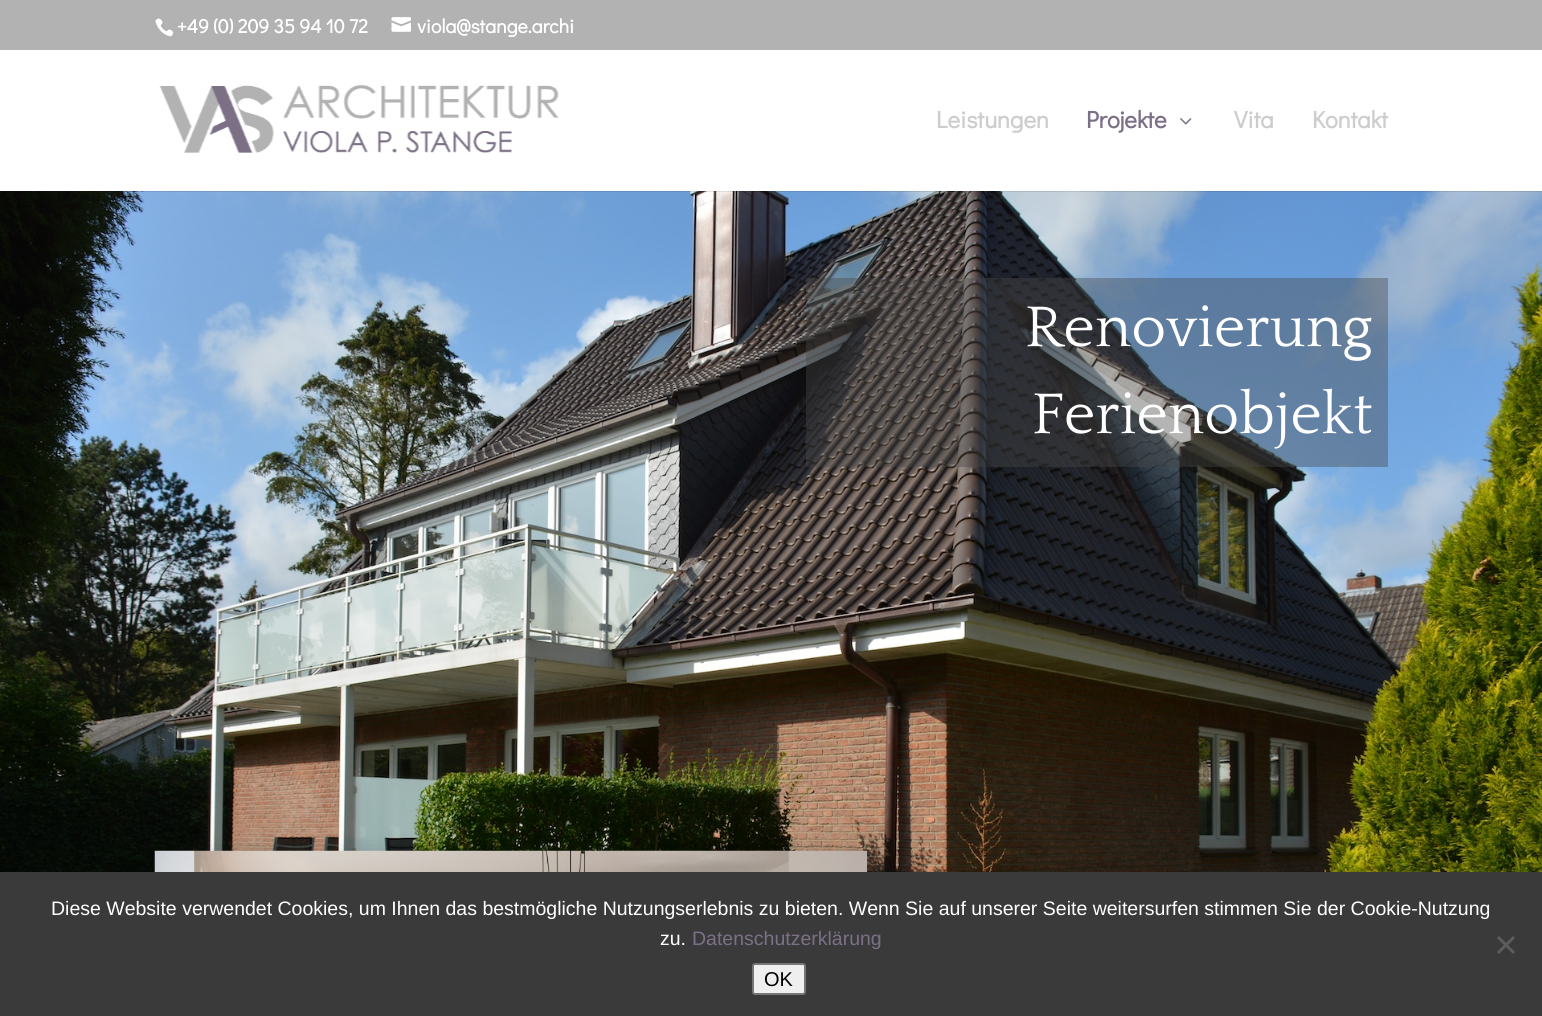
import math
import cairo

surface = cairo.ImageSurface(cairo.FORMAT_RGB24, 1542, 1016)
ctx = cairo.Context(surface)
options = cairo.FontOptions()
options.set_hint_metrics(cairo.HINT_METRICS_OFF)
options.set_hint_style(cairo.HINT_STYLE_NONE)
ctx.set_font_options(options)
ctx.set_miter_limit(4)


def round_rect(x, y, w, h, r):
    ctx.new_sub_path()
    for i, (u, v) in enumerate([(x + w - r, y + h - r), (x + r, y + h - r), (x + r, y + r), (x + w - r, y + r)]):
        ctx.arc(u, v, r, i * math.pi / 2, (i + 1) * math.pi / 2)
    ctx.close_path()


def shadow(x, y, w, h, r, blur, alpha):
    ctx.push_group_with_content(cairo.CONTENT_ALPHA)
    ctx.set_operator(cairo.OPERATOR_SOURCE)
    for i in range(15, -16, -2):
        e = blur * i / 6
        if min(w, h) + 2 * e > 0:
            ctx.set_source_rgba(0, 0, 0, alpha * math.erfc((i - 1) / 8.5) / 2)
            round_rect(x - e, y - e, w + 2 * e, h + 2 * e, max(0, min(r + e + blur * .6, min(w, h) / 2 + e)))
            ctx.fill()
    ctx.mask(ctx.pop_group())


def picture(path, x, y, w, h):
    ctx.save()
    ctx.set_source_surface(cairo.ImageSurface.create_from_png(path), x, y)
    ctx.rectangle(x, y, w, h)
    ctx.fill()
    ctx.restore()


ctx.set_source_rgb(1, 1, 1)
ctx.paint()
ctx.set_source_rgb(0.698, 0.698, 0.698)
ctx.rectangle(0, 0, 1542, 50)
ctx.fill()
picture("img1.png", 155, 18, 19, 19)
ctx.select_font_face("Didact Gothic", cairo.FONT_SLANT_NORMAL, cairo.FONT_WEIGHT_BOLD)
ctx.set_font_size(19.5)
ctx.set_source_rgb(1, 1, 1)
ctx.move_to(177, 33)
ctx.show_text("+49 (0) 209 35 94 10 72")
picture("img2.png", 391, 17, 20, 15)
ctx.move_to(417, 33)
ctx.show_text("viola@stange.archi")
picture("img5.png", 0, 191, 1542, 681)
ctx.set_source_rgba(0, 0, 0, 0.1)
ctx.rectangle(105, 191, 1437, 1)
ctx.fill()
picture("img3.png", 159, 84, 400, 69)
ctx.set_font_size(24)
ctx.set_source_rgb(0.804, 0.804, 0.804)
ctx.move_to(936, 128)
ctx.show_text("Leistungen")
ctx.set_source_rgb(0.486, 0.439, 0.525)
ctx.move_to(1086, 128)
ctx.show_text("Projekte")
picture("img4.png", 1180, 118, 12, 7)
ctx.set_source_rgb(0.804, 0.804, 0.804)
ctx.move_to(1234, 128)
ctx.show_text("Vita")
ctx.move_to(1312, 128)
ctx.show_text("Kontakt")
ctx.set_source_rgba(0.278, 0.278, 0.278, 0.4)
ctx.rectangle(806, 278, 582, 189)
ctx.fill()
ctx.select_font_face("Quattrocento")
ctx.set_font_size(60)
ctx.set_source_rgb(1, 1, 1)
ctx.move_to(1025, 346)
ctx.show_text("Renovierung")
ctx.move_to(1032, 433)
ctx.show_text("Ferienobjekt")
ctx.set_source_rgb(0, 0, 0)
shadow(164, 860, 712, 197, 0, 13.5, 0.3)
picture("img6.png", 154, 850, 713, 22)
ctx.set_source_rgb(0.227, 0.227, 0.227)
ctx.rectangle(0, 872, 1542, 144)
ctx.fill()
ctx.select_font_face("Liberation Sans")
ctx.set_font_size(19.5)
ctx.set_source_rgb(1, 1, 1)
ctx.move_to(51, 915)
ctx.show_text("Diese Website verwendet Cookies, um Ihnen das bestmögliche Nutzungserlebnis zu bieten. Wenn Sie auf unserer Seite weitersurfen stimmen Sie der Cookie-Nutzung")
ctx.move_to(660, 945)
ctx.show_text("zu.")
ctx.set_source_rgb(0.486, 0.439, 0.525)
ctx.move_to(692, 945)
ctx.show_text("Datenschutzerklärung")
ctx.set_source_rgb(0.365, 0.365, 0.365)
ctx.new_path()
ctx.move_to(1513, 936)
ctx.line_to(1515, 938)
ctx.line_to(1499, 954)
ctx.line_to(1497, 952)
ctx.close_path()
ctx.fill()
ctx.new_path()
ctx.move_to(1497, 938)
ctx.line_to(1499, 936)
ctx.line_to(1515, 952)
ctx.line_to(1513, 954)
ctx.close_path()
ctx.fill()
ctx.set_source_rgb(0.937, 0.937, 0.937)
round_rect(753, 964, 52, 30, 2)
ctx.fill_preserve()
ctx.set_source_rgb(0.463, 0.463, 0.463)
ctx.stroke()
ctx.set_font_size(20)
ctx.set_source_rgb(0, 0, 0)
ctx.move_to(764, 986)
ctx.show_text("OK")
surface.write_to_png("page.png")
